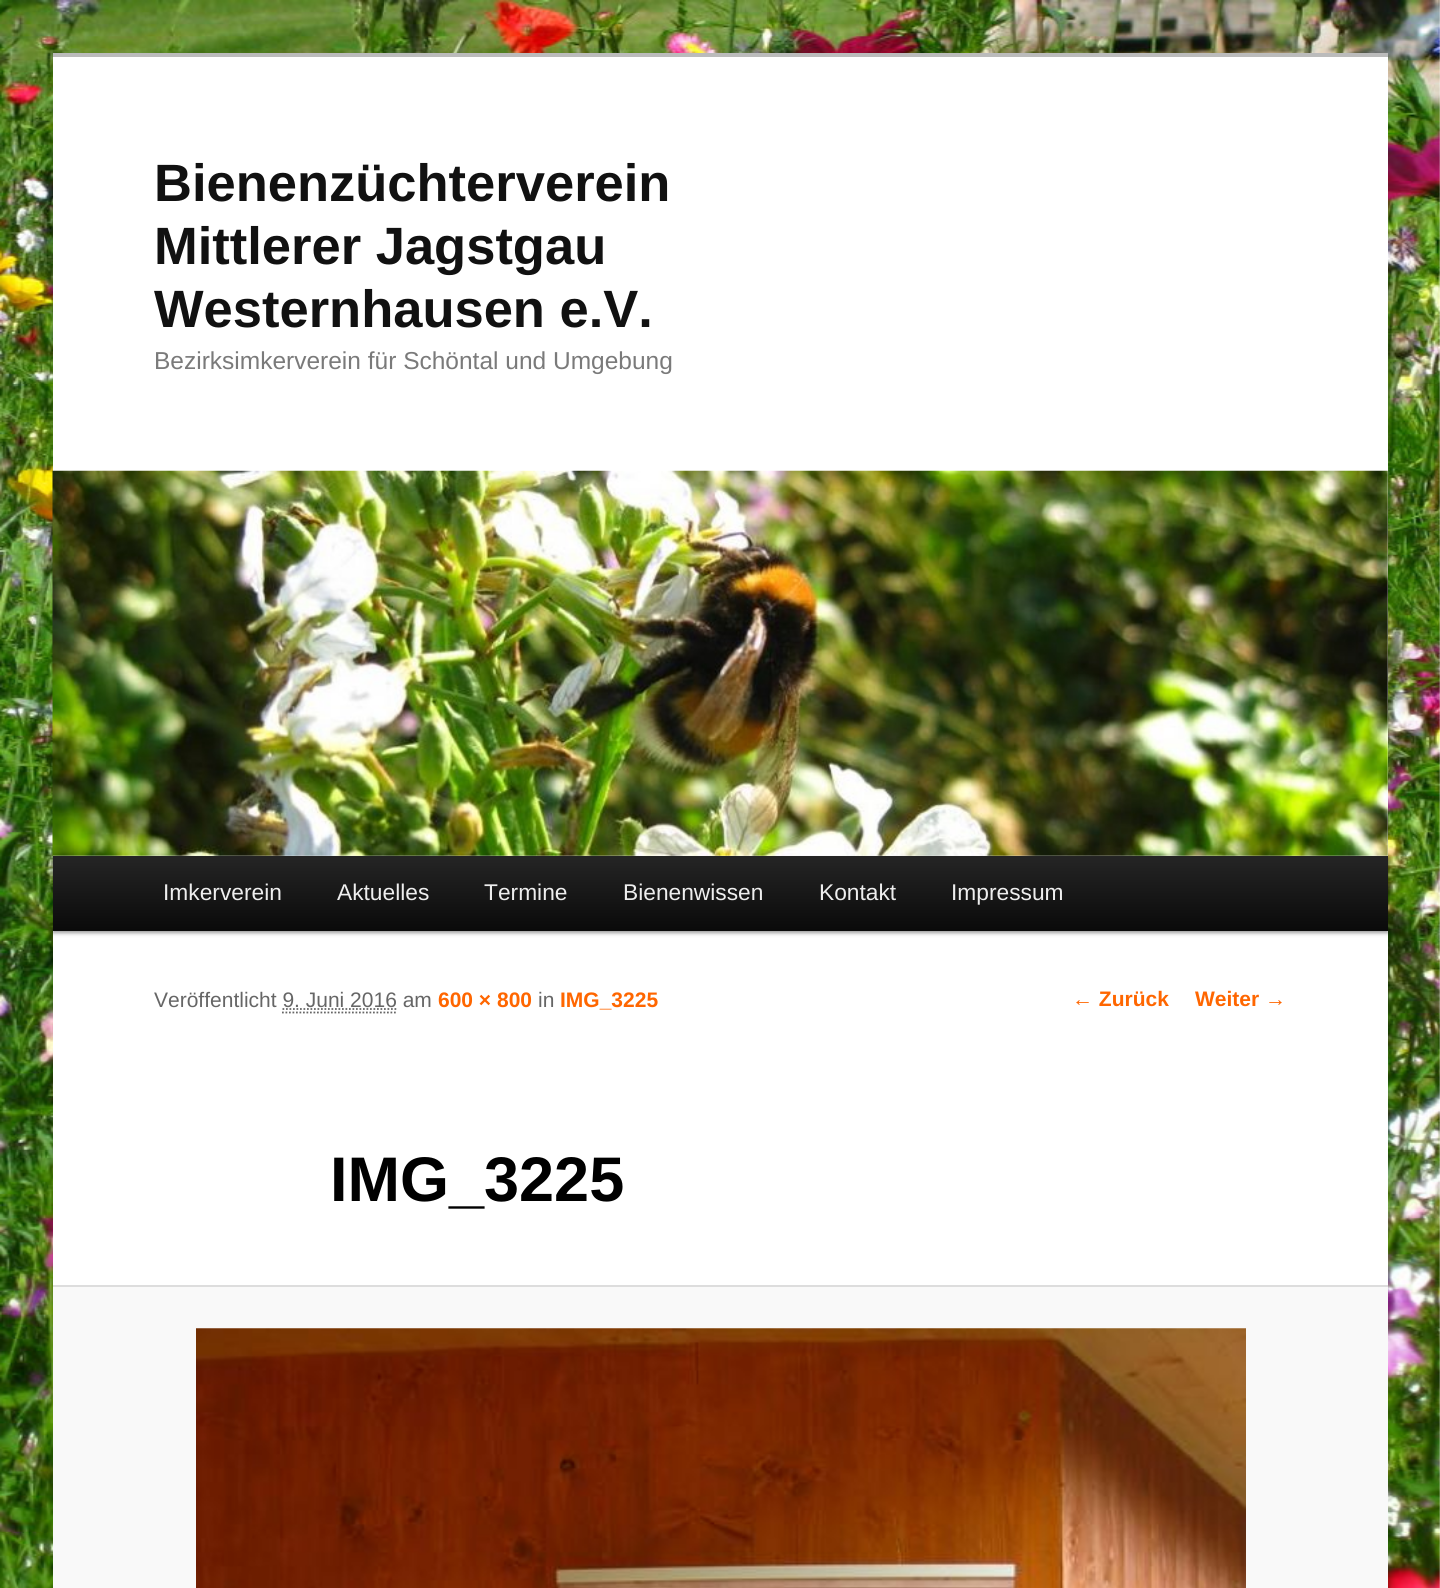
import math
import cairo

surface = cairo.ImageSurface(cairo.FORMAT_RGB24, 1440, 1588)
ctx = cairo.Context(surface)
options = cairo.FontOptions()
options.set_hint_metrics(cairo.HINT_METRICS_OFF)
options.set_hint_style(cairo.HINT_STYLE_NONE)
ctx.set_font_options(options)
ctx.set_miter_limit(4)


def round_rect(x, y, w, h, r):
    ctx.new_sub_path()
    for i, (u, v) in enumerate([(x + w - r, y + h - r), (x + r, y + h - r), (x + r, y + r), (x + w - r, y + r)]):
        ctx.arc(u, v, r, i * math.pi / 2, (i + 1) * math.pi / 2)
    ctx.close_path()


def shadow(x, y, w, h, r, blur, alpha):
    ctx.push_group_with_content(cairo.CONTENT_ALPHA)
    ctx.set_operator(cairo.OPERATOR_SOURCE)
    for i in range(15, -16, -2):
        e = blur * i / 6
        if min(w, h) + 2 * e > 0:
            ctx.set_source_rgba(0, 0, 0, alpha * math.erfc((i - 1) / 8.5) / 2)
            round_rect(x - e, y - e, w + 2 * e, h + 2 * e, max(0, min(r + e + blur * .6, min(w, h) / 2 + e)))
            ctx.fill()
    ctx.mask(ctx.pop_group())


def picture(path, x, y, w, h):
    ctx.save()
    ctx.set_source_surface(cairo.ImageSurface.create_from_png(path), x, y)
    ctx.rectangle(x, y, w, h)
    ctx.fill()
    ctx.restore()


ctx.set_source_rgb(1, 1, 1)
ctx.paint()
picture("img1.png", 0, 0, 1440, 1588)
ctx.set_source_rgb(1, 1, 1)
ctx.rectangle(53, 57, 1335, 1228)
ctx.fill()
ctx.set_source_rgb(0.733, 0.733, 0.733)
ctx.rectangle(53, 53, 1335, 4)
ctx.fill()
ctx.select_font_face("Liberation Sans", cairo.FONT_SLANT_NORMAL, cairo.FONT_WEIGHT_BOLD)
ctx.set_font_size(52.5)
ctx.set_source_rgb(0.067, 0.067, 0.067)
ctx.move_to(154, 201)
ctx.show_text("Bienenzüchterverein")
ctx.move_to(154, 264)
ctx.show_text("Mittlerer Jagstgau")
ctx.move_to(154, 327)
ctx.show_text("Westernhausen e.V.")
ctx.select_font_face("Liberation Sans")
ctx.set_font_size(24.5)
ctx.set_source_rgb(0.478, 0.478, 0.478)
ctx.move_to(154, 369)
ctx.show_text("Bezirksimkerverein für Schöntal und Umgebung")
ctx.set_source_rgb(0, 0, 0)
shadow(53, 858, 1335, 75, 0, 2, 0.4)
picture("img2.png", 52, 470, 1336, 386)
gradient = cairo.LinearGradient(720, 856, 720, 931)
gradient.add_color_stop_rgba(0, 0.145, 0.145, 0.145, 1)
gradient.add_color_stop_rgba(1, 0.039, 0.039, 0.039, 1)
ctx.set_source(gradient)
ctx.rectangle(53, 856, 1335, 75)
ctx.fill()
ctx.set_font_size(22.75)
ctx.set_source_rgb(0.933, 0.933, 0.933)
ctx.move_to(163, 900)
ctx.show_text("Imkerverein")
ctx.move_to(337, 900)
ctx.show_text("Aktuelles")
ctx.move_to(484, 900)
ctx.show_text("Termine")
ctx.move_to(623, 900)
ctx.show_text("Bienenwissen")
ctx.move_to(819, 900)
ctx.show_text("Kontakt")
ctx.move_to(951, 900)
ctx.show_text("Impressum")
ctx.set_font_size(21)
ctx.set_source_rgb(0.4, 0.4, 0.4)
ctx.move_to(154, 1007)
ctx.show_text("Veröffentlicht 9. Juni 2016 am")
ctx.select_font_face("Liberation Sans", cairo.FONT_SLANT_NORMAL, cairo.FONT_WEIGHT_BOLD)
ctx.set_source_rgb(1, 0.4, 0)
ctx.move_to(438, 1007)
ctx.show_text("600 × 800")
ctx.select_font_face("Liberation Sans")
ctx.set_source_rgb(0.4, 0.4, 0.4)
ctx.move_to(538, 1007)
ctx.show_text("in")
ctx.select_font_face("Liberation Sans", cairo.FONT_SLANT_NORMAL, cairo.FONT_WEIGHT_BOLD)
ctx.set_source_rgb(1, 0.4, 0)
ctx.move_to(560, 1007)
ctx.show_text("IMG_3225")
ctx.new_path()
ctx.move_to(282.5, 1009)
ctx.line_to(397, 1009)
ctx.set_source_rgb(0.4, 0.4, 0.4)
ctx.set_line_width(1.8)
ctx.set_dash([1.75, 1.75])
ctx.stroke()
ctx.new_path()
ctx.move_to(282, 1012.5)
ctx.line_to(397, 1012.5)
ctx.stroke()
ctx.set_font_size(63)
ctx.set_source_rgb(0, 0, 0)
ctx.move_to(330, 1201)
ctx.show_text("IMG_3225")
ctx.set_source_rgb(0.976, 0.976, 0.976)
ctx.rectangle(53, 1287, 1335, 301)
ctx.fill()
ctx.set_source_rgb(0.867, 0.867, 0.867)
ctx.rectangle(53, 1285, 1335, 2)
ctx.fill()
picture("img3.png", 196, 1328, 1050, 260)
ctx.set_font_size(21)
ctx.set_source_rgb(1, 0.4, 0)
ctx.move_to(1072, 1006)
ctx.show_text("← Zurück")
ctx.move_to(1195, 1006)
ctx.show_text("Weiter →")
surface.write_to_png("page.png")
